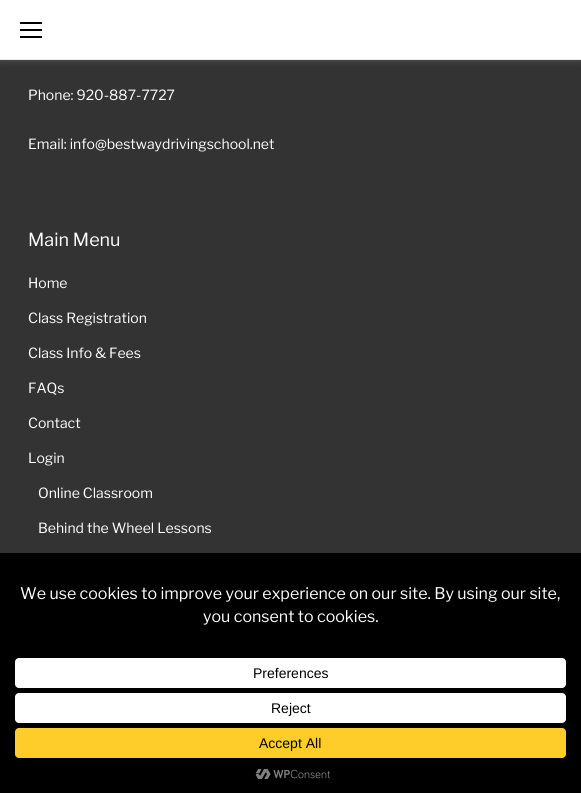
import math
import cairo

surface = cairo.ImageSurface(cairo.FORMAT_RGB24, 581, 793)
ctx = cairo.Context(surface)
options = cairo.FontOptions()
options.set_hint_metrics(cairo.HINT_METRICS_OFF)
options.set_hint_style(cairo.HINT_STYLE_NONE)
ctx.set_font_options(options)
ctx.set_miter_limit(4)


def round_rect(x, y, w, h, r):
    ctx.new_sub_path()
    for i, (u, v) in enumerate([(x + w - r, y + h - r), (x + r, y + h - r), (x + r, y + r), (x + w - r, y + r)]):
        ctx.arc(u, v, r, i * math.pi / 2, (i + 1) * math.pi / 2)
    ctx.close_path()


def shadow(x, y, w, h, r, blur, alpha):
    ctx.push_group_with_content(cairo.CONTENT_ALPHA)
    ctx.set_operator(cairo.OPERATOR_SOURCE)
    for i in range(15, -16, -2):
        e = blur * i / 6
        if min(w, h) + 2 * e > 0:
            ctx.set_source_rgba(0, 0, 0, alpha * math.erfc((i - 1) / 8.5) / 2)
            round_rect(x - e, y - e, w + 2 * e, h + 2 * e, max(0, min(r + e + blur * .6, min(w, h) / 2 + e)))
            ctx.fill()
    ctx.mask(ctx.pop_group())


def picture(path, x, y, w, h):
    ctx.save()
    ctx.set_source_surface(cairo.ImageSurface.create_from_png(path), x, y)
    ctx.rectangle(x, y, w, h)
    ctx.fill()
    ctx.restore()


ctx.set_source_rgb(0.2, 0.2, 0.2)
ctx.paint()
ctx.set_source_rgb(0.533, 0.533, 0.533)
shadow(0, 2, 581, 60, 0, 3, 0.26)
ctx.set_source_rgb(1, 1, 1)
ctx.rectangle(0, 0, 581, 59)
ctx.fill()
ctx.set_source_rgb(0.925, 0.925, 0.933)
ctx.rectangle(0, 59, 581, 1)
ctx.fill()
ctx.set_source_rgb(0, 0, 0)
ctx.rectangle(20, 29, 22, 2)
ctx.fill()
ctx.rectangle(20, 22, 22, 2)
ctx.fill()
ctx.rectangle(20, 36, 22, 2)
ctx.fill()
ctx.select_font_face("Libre Franklin")
ctx.set_font_size(14)
ctx.set_source_rgb(1, 1, 1)
ctx.move_to(28, 100)
ctx.show_text("Phone: 920-887-7727")
ctx.move_to(28, 149)
ctx.show_text("Email: info@bestwaydrivingschool.net")
ctx.set_font_size(18)
ctx.move_to(28, 246)
ctx.show_text("Main Menu")
ctx.set_font_size(14)
ctx.move_to(28, 288)
ctx.show_text("Home")
ctx.move_to(28, 323)
ctx.show_text("Class Registration")
ctx.move_to(28, 358)
ctx.show_text("Class Info & Fees")
ctx.move_to(28, 393)
ctx.show_text("FAQs")
ctx.move_to(28, 428)
ctx.show_text("Contact")
ctx.move_to(28, 463)
ctx.show_text("Login")
ctx.move_to(38, 498)
ctx.show_text("Online Classroom")
ctx.move_to(38, 533)
ctx.show_text("Behind the Wheel Lessons")
ctx.set_source_rgb(0, 0, 0)
ctx.rectangle(0, 553, 581, 240)
ctx.fill()
ctx.set_font_size(16)
ctx.set_source_rgb(1, 1, 1)
ctx.move_to(20, 599)
ctx.show_text("We use cookies to improve your experience on our site. By using our site,")
ctx.move_to(203, 622)
ctx.show_text("you consent to cookies.")
round_rect(15, 658, 551, 30, 4)
ctx.fill()
ctx.select_font_face("Liberation Sans")
ctx.set_font_size(14)
ctx.set_source_rgb(0, 0, 0)
ctx.move_to(253, 678)
ctx.show_text("Preferences")
ctx.set_source_rgb(1, 1, 1)
round_rect(15, 693, 551, 30, 4)
ctx.fill()
ctx.set_source_rgb(0, 0, 0)
ctx.move_to(271, 713)
ctx.show_text("Reject")
ctx.set_source_rgb(1, 0.804, 0.165)
round_rect(15, 728, 551, 30, 4)
ctx.fill()
ctx.set_source_rgb(0, 0, 0)
ctx.move_to(259, 748)
ctx.show_text("Accept All")
picture("img1.png", 255, 769, 75, 11)
surface.write_to_png("page.png")
